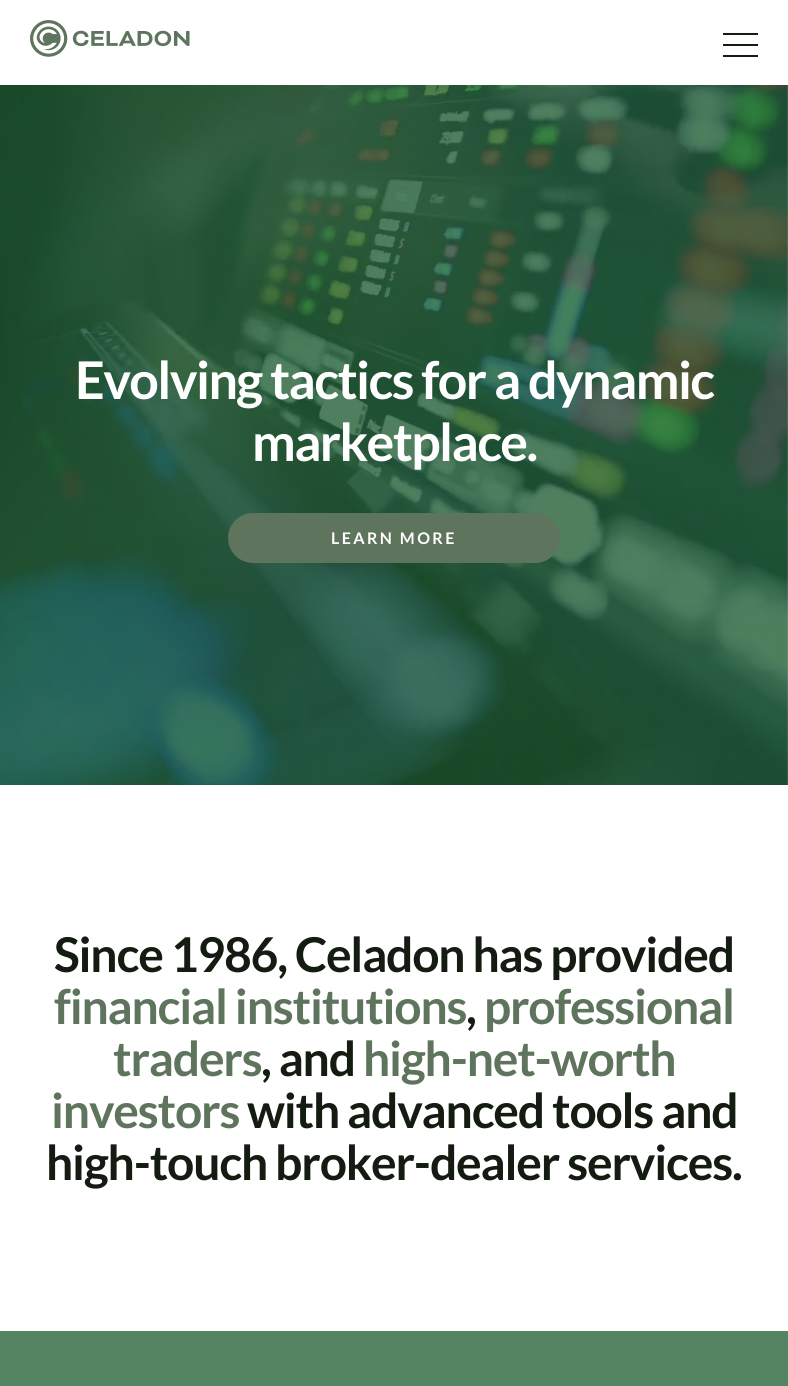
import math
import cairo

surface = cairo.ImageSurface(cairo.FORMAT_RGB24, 788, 1386)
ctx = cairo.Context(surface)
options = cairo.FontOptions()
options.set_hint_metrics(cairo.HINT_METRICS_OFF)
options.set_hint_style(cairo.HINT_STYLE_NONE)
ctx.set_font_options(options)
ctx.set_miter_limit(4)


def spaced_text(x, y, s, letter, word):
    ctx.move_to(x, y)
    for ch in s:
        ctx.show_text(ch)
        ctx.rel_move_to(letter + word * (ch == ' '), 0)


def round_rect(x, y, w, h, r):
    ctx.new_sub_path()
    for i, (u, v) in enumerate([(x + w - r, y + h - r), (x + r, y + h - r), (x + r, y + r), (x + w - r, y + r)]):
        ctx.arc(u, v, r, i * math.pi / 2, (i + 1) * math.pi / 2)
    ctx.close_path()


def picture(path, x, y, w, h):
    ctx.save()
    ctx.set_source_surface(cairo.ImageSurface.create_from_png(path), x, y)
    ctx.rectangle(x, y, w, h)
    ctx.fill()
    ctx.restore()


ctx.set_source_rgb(1, 1, 1)
ctx.paint()
picture("img1.png", 30, 20, 160, 37)
ctx.set_source_rgb(0.082, 0.11, 0.067)
ctx.rectangle(723, 33, 35, 2)
ctx.fill()
ctx.rectangle(723, 44, 35, 2)
ctx.fill()
ctx.rectangle(723, 55, 35, 2)
ctx.fill()
picture("img2.png", 0, 85, 788, 700)
ctx.select_font_face("Lato", cairo.FONT_SLANT_NORMAL, cairo.FONT_WEIGHT_BOLD)
ctx.set_font_size(52)
ctx.set_source_rgb(1, 1, 1)
spaced_text(75, 399, "Evolving tactics for a dynamic", -1.6, 0)
spaced_text(252, 461, "marketplace.", -1.6, 0)
ctx.set_source_rgb(0.369, 0.455, 0.365)
round_rect(228, 513, 332, 50, 25)
ctx.fill()
ctx.set_font_size(16)
ctx.set_source_rgb(1, 1, 1)
spaced_text(331, 544, "LEARN MORE", 2.4, 0)
ctx.set_font_size(48)
ctx.set_source_rgb(0.082, 0.11, 0.067)
spaced_text(54, 972, "Since 1986, Celadon has provided", -1.2, 0)
ctx.set_source_rgb(0.369, 0.455, 0.365)
spaced_text(54, 1024, "financial institutions", -1.2, 0)
ctx.set_source_rgb(0.082, 0.11, 0.067)
spaced_text(466, 1024, ",", -1.2, 0)
ctx.set_source_rgb(0.369, 0.455, 0.365)
spaced_text(484, 1024, "professional", -1.2, 0)
spaced_text(113, 1076, "traders", -1.2, 0)
ctx.set_source_rgb(0.082, 0.11, 0.067)
spaced_text(261, 1076, ", and", -1.2, 0)
ctx.set_source_rgb(0.369, 0.455, 0.365)
spaced_text(363, 1076, "high-net-worth", -1.2, 0)
spaced_text(51, 1128, "investors", -1.2, 0)
ctx.set_source_rgb(0.082, 0.11, 0.067)
spaced_text(247, 1128, "with advanced tools and", -1.2, 0)
spaced_text(46, 1180, "high-touch broker-dealer services.", -1.2, 0)
ctx.set_source_rgb(0.329, 0.518, 0.384)
ctx.rectangle(0, 1331, 788, 55)
ctx.fill()
surface.write_to_png("page.png")
